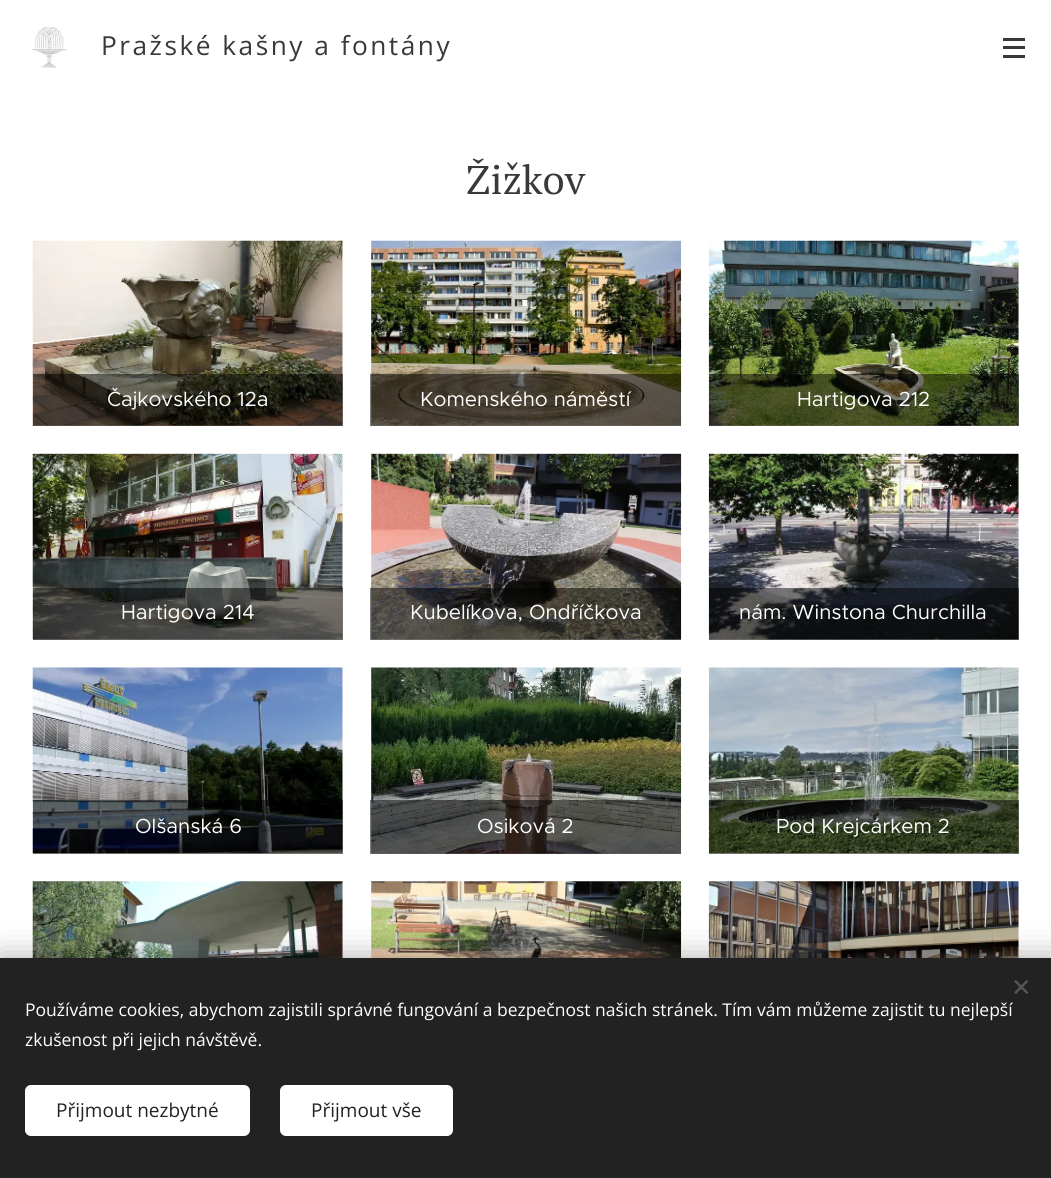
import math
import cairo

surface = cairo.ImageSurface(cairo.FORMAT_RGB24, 1051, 1178)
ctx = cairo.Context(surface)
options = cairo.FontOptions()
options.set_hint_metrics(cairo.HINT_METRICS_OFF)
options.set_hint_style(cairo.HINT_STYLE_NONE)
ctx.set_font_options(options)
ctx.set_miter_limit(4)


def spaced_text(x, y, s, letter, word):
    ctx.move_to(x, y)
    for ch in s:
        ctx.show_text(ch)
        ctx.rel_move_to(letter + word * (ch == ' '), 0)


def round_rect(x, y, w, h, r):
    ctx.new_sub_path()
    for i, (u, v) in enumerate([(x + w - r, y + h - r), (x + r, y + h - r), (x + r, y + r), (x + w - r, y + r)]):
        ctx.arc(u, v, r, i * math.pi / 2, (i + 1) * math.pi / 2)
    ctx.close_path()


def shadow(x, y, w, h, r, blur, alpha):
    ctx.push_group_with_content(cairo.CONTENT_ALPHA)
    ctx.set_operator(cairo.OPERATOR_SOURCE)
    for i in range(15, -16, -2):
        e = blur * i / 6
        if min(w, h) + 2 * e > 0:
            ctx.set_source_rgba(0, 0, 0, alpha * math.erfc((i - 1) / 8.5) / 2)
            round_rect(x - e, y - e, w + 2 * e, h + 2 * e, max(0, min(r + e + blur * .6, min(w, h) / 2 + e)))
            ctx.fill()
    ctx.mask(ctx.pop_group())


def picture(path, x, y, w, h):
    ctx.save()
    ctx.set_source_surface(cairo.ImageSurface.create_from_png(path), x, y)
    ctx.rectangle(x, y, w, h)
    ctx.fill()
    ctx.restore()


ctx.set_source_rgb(1, 1, 1)
ctx.paint()
picture("img1.png", 32, 27, 35, 41)
ctx.select_font_face("Open Sans")
ctx.set_font_size(26.25)
ctx.set_source_rgb(0.224, 0.224, 0.224)
spaced_text(101, 55, "Pražské kašny a fontány", 2.5, 0)
ctx.rectangle(1003, 46, 22, 3)
ctx.fill()
ctx.rectangle(1003, 38, 22, 3)
ctx.fill()
ctx.rectangle(1003, 55, 22, 3)
ctx.fill()
ctx.select_font_face("PT Serif")
ctx.set_font_size(40)
ctx.move_to(466, 194)
ctx.show_text("Žižkov")
picture("img2.png", 32, 240, 311, 186)
ctx.set_source_rgba(0, 0, 0, 0.5)
ctx.rectangle(33, 374, 310, 52)
ctx.fill()
ctx.select_font_face("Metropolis")
ctx.set_font_size(20.5)
ctx.set_source_rgb(1, 1, 1)
ctx.move_to(107, 406)
ctx.show_text("Čajkovského 12a")
picture("img3.png", 371, 240, 311, 186)
ctx.set_source_rgba(0, 0, 0, 0.5)
ctx.rectangle(370, 374, 311, 52)
ctx.fill()
ctx.set_source_rgb(1, 1, 1)
ctx.move_to(420, 406)
ctx.show_text("Komenského náměstí")
picture("img4.png", 708, 240, 311, 186)
ctx.set_source_rgba(0, 0, 0, 0.5)
ctx.rectangle(709, 374, 310, 52)
ctx.fill()
ctx.set_source_rgb(1, 1, 1)
ctx.move_to(797, 406)
ctx.show_text("Hartigova 212")
picture("img5.png", 32, 453, 311, 187)
ctx.set_source_rgba(0, 0, 0, 0.5)
ctx.rectangle(33, 588, 310, 52)
ctx.fill()
ctx.set_source_rgb(1, 1, 1)
ctx.move_to(121, 619)
ctx.show_text("Hartigova 214")
picture("img6.png", 371, 453, 311, 187)
ctx.set_source_rgba(0, 0, 0, 0.5)
ctx.rectangle(370, 588, 311, 52)
ctx.fill()
ctx.set_source_rgb(1, 1, 1)
ctx.move_to(410, 619)
ctx.show_text("Kubelíkova, Ondříčkova")
picture("img7.png", 708, 453, 311, 187)
ctx.set_source_rgba(0, 0, 0, 0.5)
ctx.rectangle(709, 588, 310, 52)
ctx.fill()
ctx.set_source_rgb(1, 1, 1)
ctx.move_to(739, 619)
ctx.show_text("nám. Winstona Churchilla")
picture("img8.png", 32, 667, 311, 187)
ctx.set_source_rgba(0, 0, 0, 0.5)
ctx.rectangle(33, 800, 310, 54)
ctx.fill()
ctx.set_source_rgb(1, 1, 1)
ctx.move_to(135, 833)
ctx.show_text("Olšanská 6")
picture("img9.png", 371, 667, 311, 187)
ctx.set_source_rgba(0, 0, 0, 0.5)
ctx.rectangle(370, 800, 311, 54)
ctx.fill()
ctx.set_source_rgb(1, 1, 1)
ctx.move_to(477, 833)
ctx.show_text("Osiková 2")
picture("img10.png", 708, 667, 311, 187)
ctx.set_source_rgba(0, 0, 0, 0.5)
ctx.rectangle(709, 800, 310, 54)
ctx.fill()
ctx.set_source_rgb(1, 1, 1)
ctx.move_to(776, 833)
ctx.show_text("Pod Krejcárkem 2")
picture("img11.png", 32, 881, 311, 77)
picture("img12.png", 371, 881, 311, 77)
picture("img13.png", 708, 881, 311, 77)
ctx.set_source_rgb(0, 0, 0)
shadow(0, 958, 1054, 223, 0, 15.5, 0.33)
ctx.set_source_rgb(0.133, 0.133, 0.133)
ctx.rectangle(0, 958, 1051, 220)
ctx.fill()
ctx.set_source_rgb(0.333, 0.333, 0.333)
ctx.new_path()
ctx.move_to(1014, 992.5)
ctx.line_to(1026.5, 980)
ctx.line_to(1028.5, 981.5)
ctx.line_to(1016, 994)
ctx.close_path()
ctx.fill()
ctx.new_path()
ctx.move_to(1016, 980)
ctx.line_to(1028.5, 992.5)
ctx.line_to(1026.5, 994)
ctx.line_to(1014, 981.5)
ctx.close_path()
ctx.fill()
ctx.select_font_face("Open Sans")
ctx.set_font_size(17.5)
ctx.set_source_rgb(1, 1, 1)
ctx.move_to(25, 1016)
ctx.show_text("Používáme cookies, abychom zajistili správné fungování a bezpečnost našich stránek. Tím vám můžeme zajistit tu nejlepší")
ctx.move_to(25, 1046)
ctx.show_text("zkušenost při jejich návštěvě.")
round_rect(25, 1085, 225, 51, 6)
ctx.fill()
ctx.set_font_size(19)
ctx.set_source_rgb(0.133, 0.133, 0.133)
ctx.move_to(56, 1117)
ctx.show_text("Přijmout nezbytné")
ctx.set_source_rgb(1, 1, 1)
round_rect(280, 1085, 173, 51, 6)
ctx.fill()
ctx.set_source_rgb(0.133, 0.133, 0.133)
ctx.move_to(311, 1117)
ctx.show_text("Přijmout vše")
surface.write_to_png("page.png")
